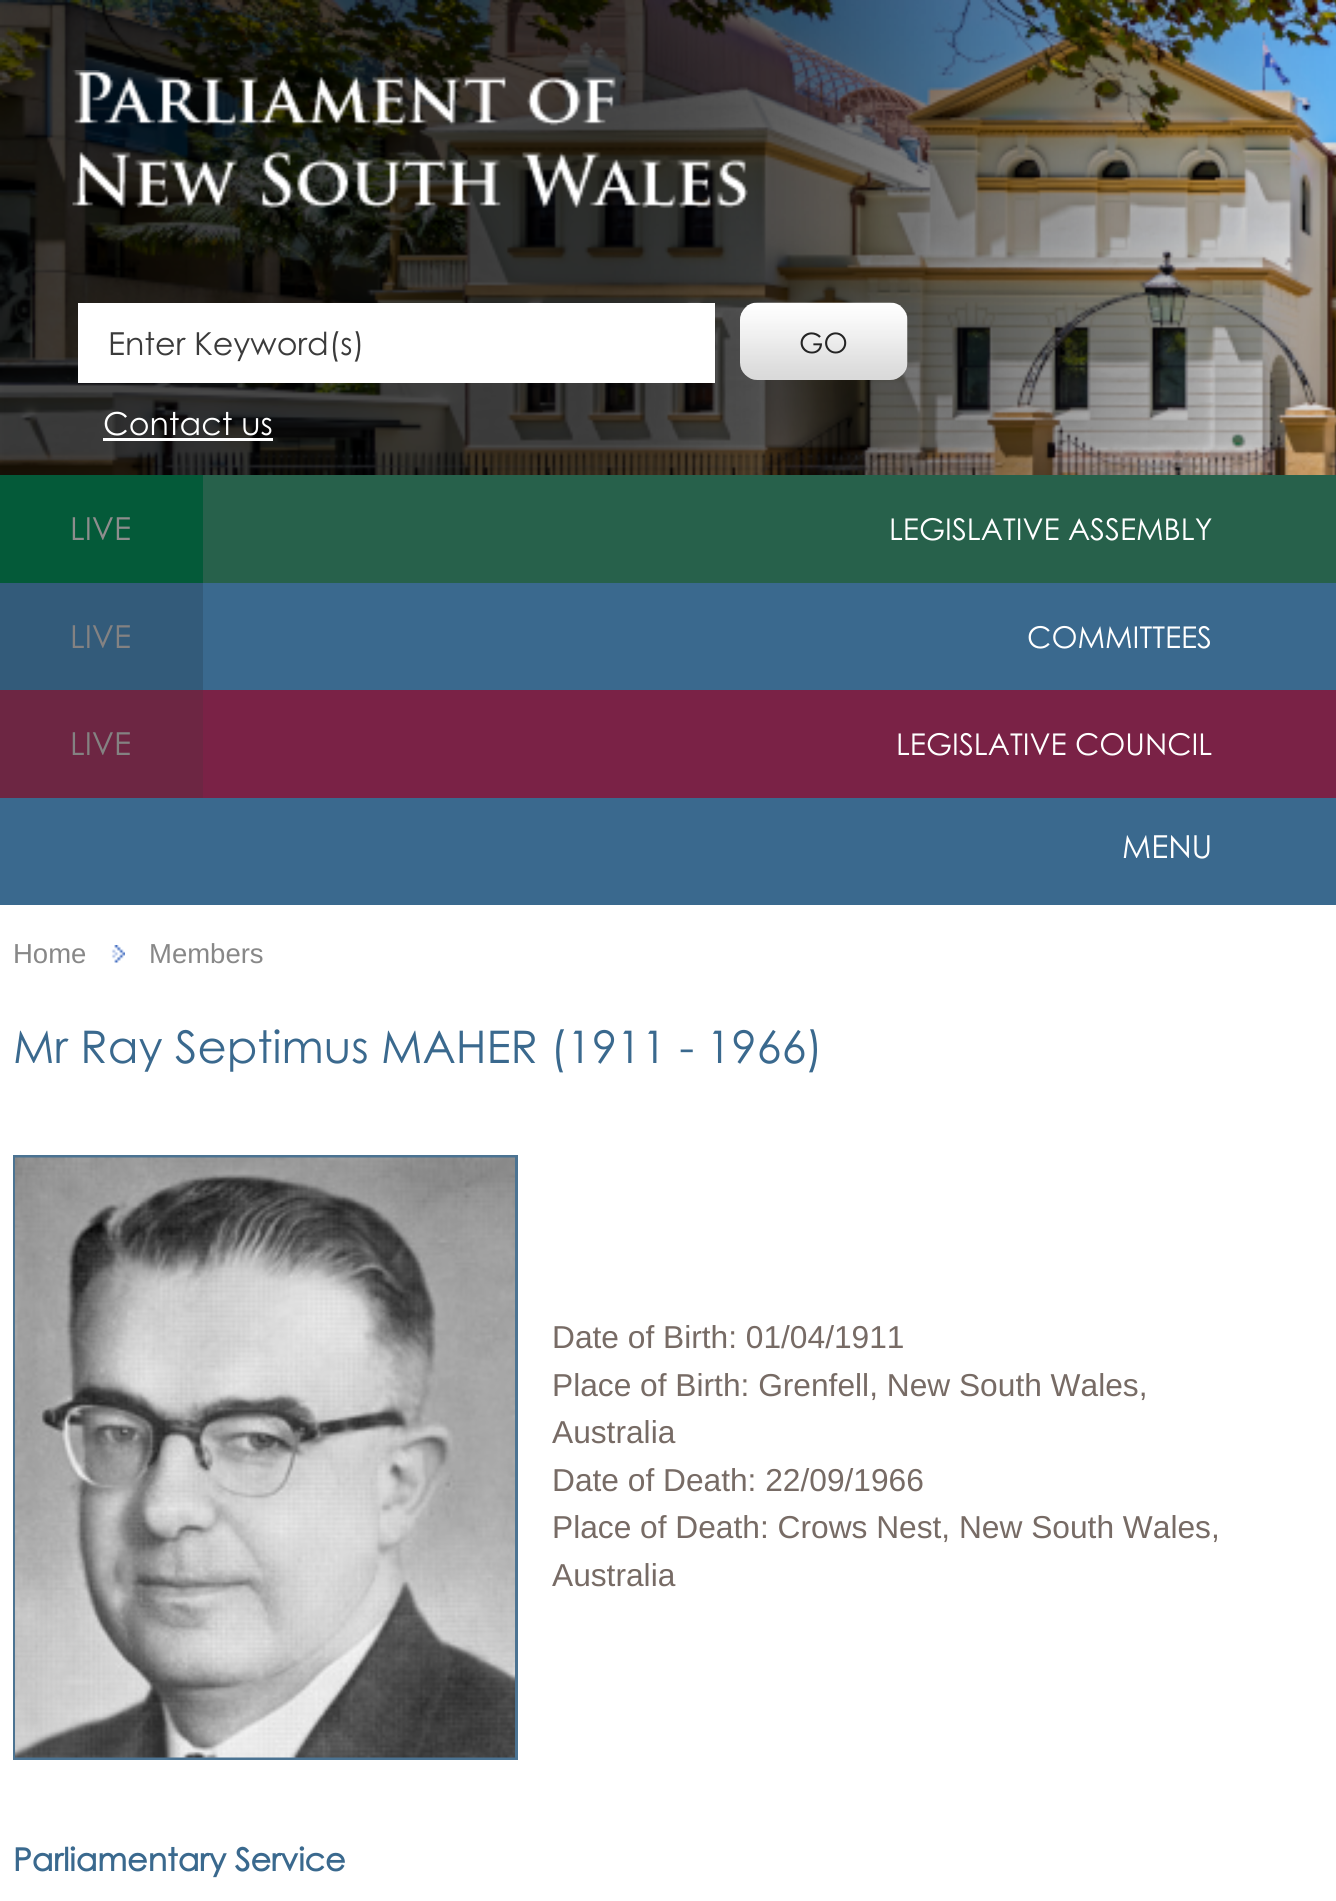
import math
import cairo

surface = cairo.ImageSurface(cairo.FORMAT_RGB24, 1336, 1901)
ctx = cairo.Context(surface)
options = cairo.FontOptions()
options.set_hint_metrics(cairo.HINT_METRICS_OFF)
options.set_hint_style(cairo.HINT_STYLE_NONE)
ctx.set_font_options(options)
ctx.set_miter_limit(4)


def picture(path, x, y, w, h):
    ctx.save()
    ctx.set_source_surface(cairo.ImageSurface.create_from_png(path), x, y)
    ctx.rectangle(x, y, w, h)
    ctx.fill()
    ctx.restore()


ctx.set_source_rgb(1, 1, 1)
ctx.paint()
picture("img1.png", 0, 0, 1336, 475)
picture("img2.png", 0, 0, 1336, 475)
picture("img3.png", 72, 70, 676, 138)
ctx.set_source_rgb(1, 1, 1)
ctx.rectangle(78, 303, 637, 80)
ctx.fill()
ctx.select_font_face("Century Gothic")
ctx.set_font_size(31.7)
ctx.set_source_rgb(0.231, 0.231, 0.231)
ctx.move_to(108, 355)
ctx.show_text("Enter Keyword(s)")
picture("img4.png", 740, 302, 168, 78)
ctx.set_font_size(28)
ctx.set_source_rgb(0.141, 0.141, 0.141)
ctx.move_to(799, 353)
ctx.show_text("GO")
ctx.set_font_size(31.7)
ctx.set_source_rgb(1, 1, 1)
ctx.move_to(103, 435)
ctx.show_text("Contact us")
ctx.rectangle(103, 438, 170, 3)
ctx.fill()
ctx.set_source_rgb(0.153, 0.38, 0.294)
ctx.rectangle(203, 475, 1133, 108)
ctx.fill()
ctx.set_source_rgb(0.016, 0.353, 0.224)
ctx.rectangle(0, 475, 203, 108)
ctx.fill()
ctx.set_source_rgb(0.557, 0.553, 0.553)
ctx.move_to(70, 540)
ctx.show_text("LIVE")
ctx.set_font_size(30)
ctx.set_source_rgb(1, 1, 1)
ctx.move_to(889, 540)
ctx.show_text("LEGISLATIVE ASSEMBLY")
ctx.set_source_rgb(0.227, 0.412, 0.557)
ctx.rectangle(203, 583, 1133, 107)
ctx.fill()
ctx.set_source_rgb(0.2, 0.357, 0.478)
ctx.rectangle(0, 583, 203, 107)
ctx.fill()
ctx.set_font_size(31.7)
ctx.set_source_rgb(0.518, 0.51, 0.51)
ctx.move_to(70, 648)
ctx.show_text("LIVE")
ctx.set_font_size(30)
ctx.set_source_rgb(1, 1, 1)
ctx.move_to(1027, 648)
ctx.show_text("COMMITTEES")
ctx.set_source_rgb(0.478, 0.133, 0.275)
ctx.rectangle(203, 690, 1133, 108)
ctx.fill()
ctx.set_source_rgb(0.427, 0.149, 0.263)
ctx.rectangle(0, 690, 203, 108)
ctx.fill()
ctx.set_font_size(31.7)
ctx.set_source_rgb(0.518, 0.51, 0.51)
ctx.move_to(70, 755)
ctx.show_text("LIVE")
ctx.set_font_size(30)
ctx.set_source_rgb(1, 1, 1)
ctx.move_to(896, 755)
ctx.show_text("LEGISLATIVE COUNCIL")
ctx.set_source_rgb(0.227, 0.412, 0.557)
ctx.rectangle(0, 798, 1336, 107)
ctx.fill()
ctx.set_font_size(31.7)
ctx.set_source_rgb(1, 1, 1)
ctx.move_to(1122, 858)
ctx.show_text("MENU")
ctx.select_font_face("Liberation Sans")
ctx.set_font_size(27.5)
ctx.set_source_rgb(0.533, 0.533, 0.533)
ctx.move_to(13, 963)
ctx.show_text("Home")
picture("img5.png", 111, 945, 14, 18)
ctx.move_to(149, 963)
ctx.show_text("Members")
ctx.select_font_face("Century Gothic")
ctx.set_font_size(45)
ctx.set_source_rgb(0.227, 0.412, 0.557)
ctx.move_to(13, 1063)
ctx.show_text("Mr Ray Septimus MAHER (1911 - 1966)")
ctx.rectangle(14.5, 1156.5, 502, 602)
ctx.set_source_rgb(0.294, 0.451, 0.573)
ctx.set_line_width(3)
ctx.stroke()
picture("img6.png", 15, 1157, 500, 601)
ctx.select_font_face("Liberation Sans")
ctx.set_font_size(31.7)
ctx.set_source_rgb(0.467, 0.42, 0.396)
ctx.move_to(552, 1348)
ctx.show_text("Date of Birth: 01/04/1911")
ctx.move_to(552, 1396)
ctx.show_text("Place of Birth: Grenfell, New South Wales,")
ctx.move_to(552, 1443)
ctx.show_text("Australia")
ctx.move_to(552, 1491)
ctx.show_text("Date of Death: 22/09/1966")
ctx.move_to(552, 1538)
ctx.show_text("Place of Death: Crows Nest, New South Wales,")
ctx.move_to(552, 1586)
ctx.show_text("Australia")
ctx.select_font_face("Century Gothic", cairo.FONT_SLANT_NORMAL, cairo.FONT_WEIGHT_BOLD)
ctx.set_source_rgb(0.227, 0.412, 0.557)
ctx.move_to(13, 1871)
ctx.show_text("Parliamentary Service")
surface.write_to_png("page.png")
